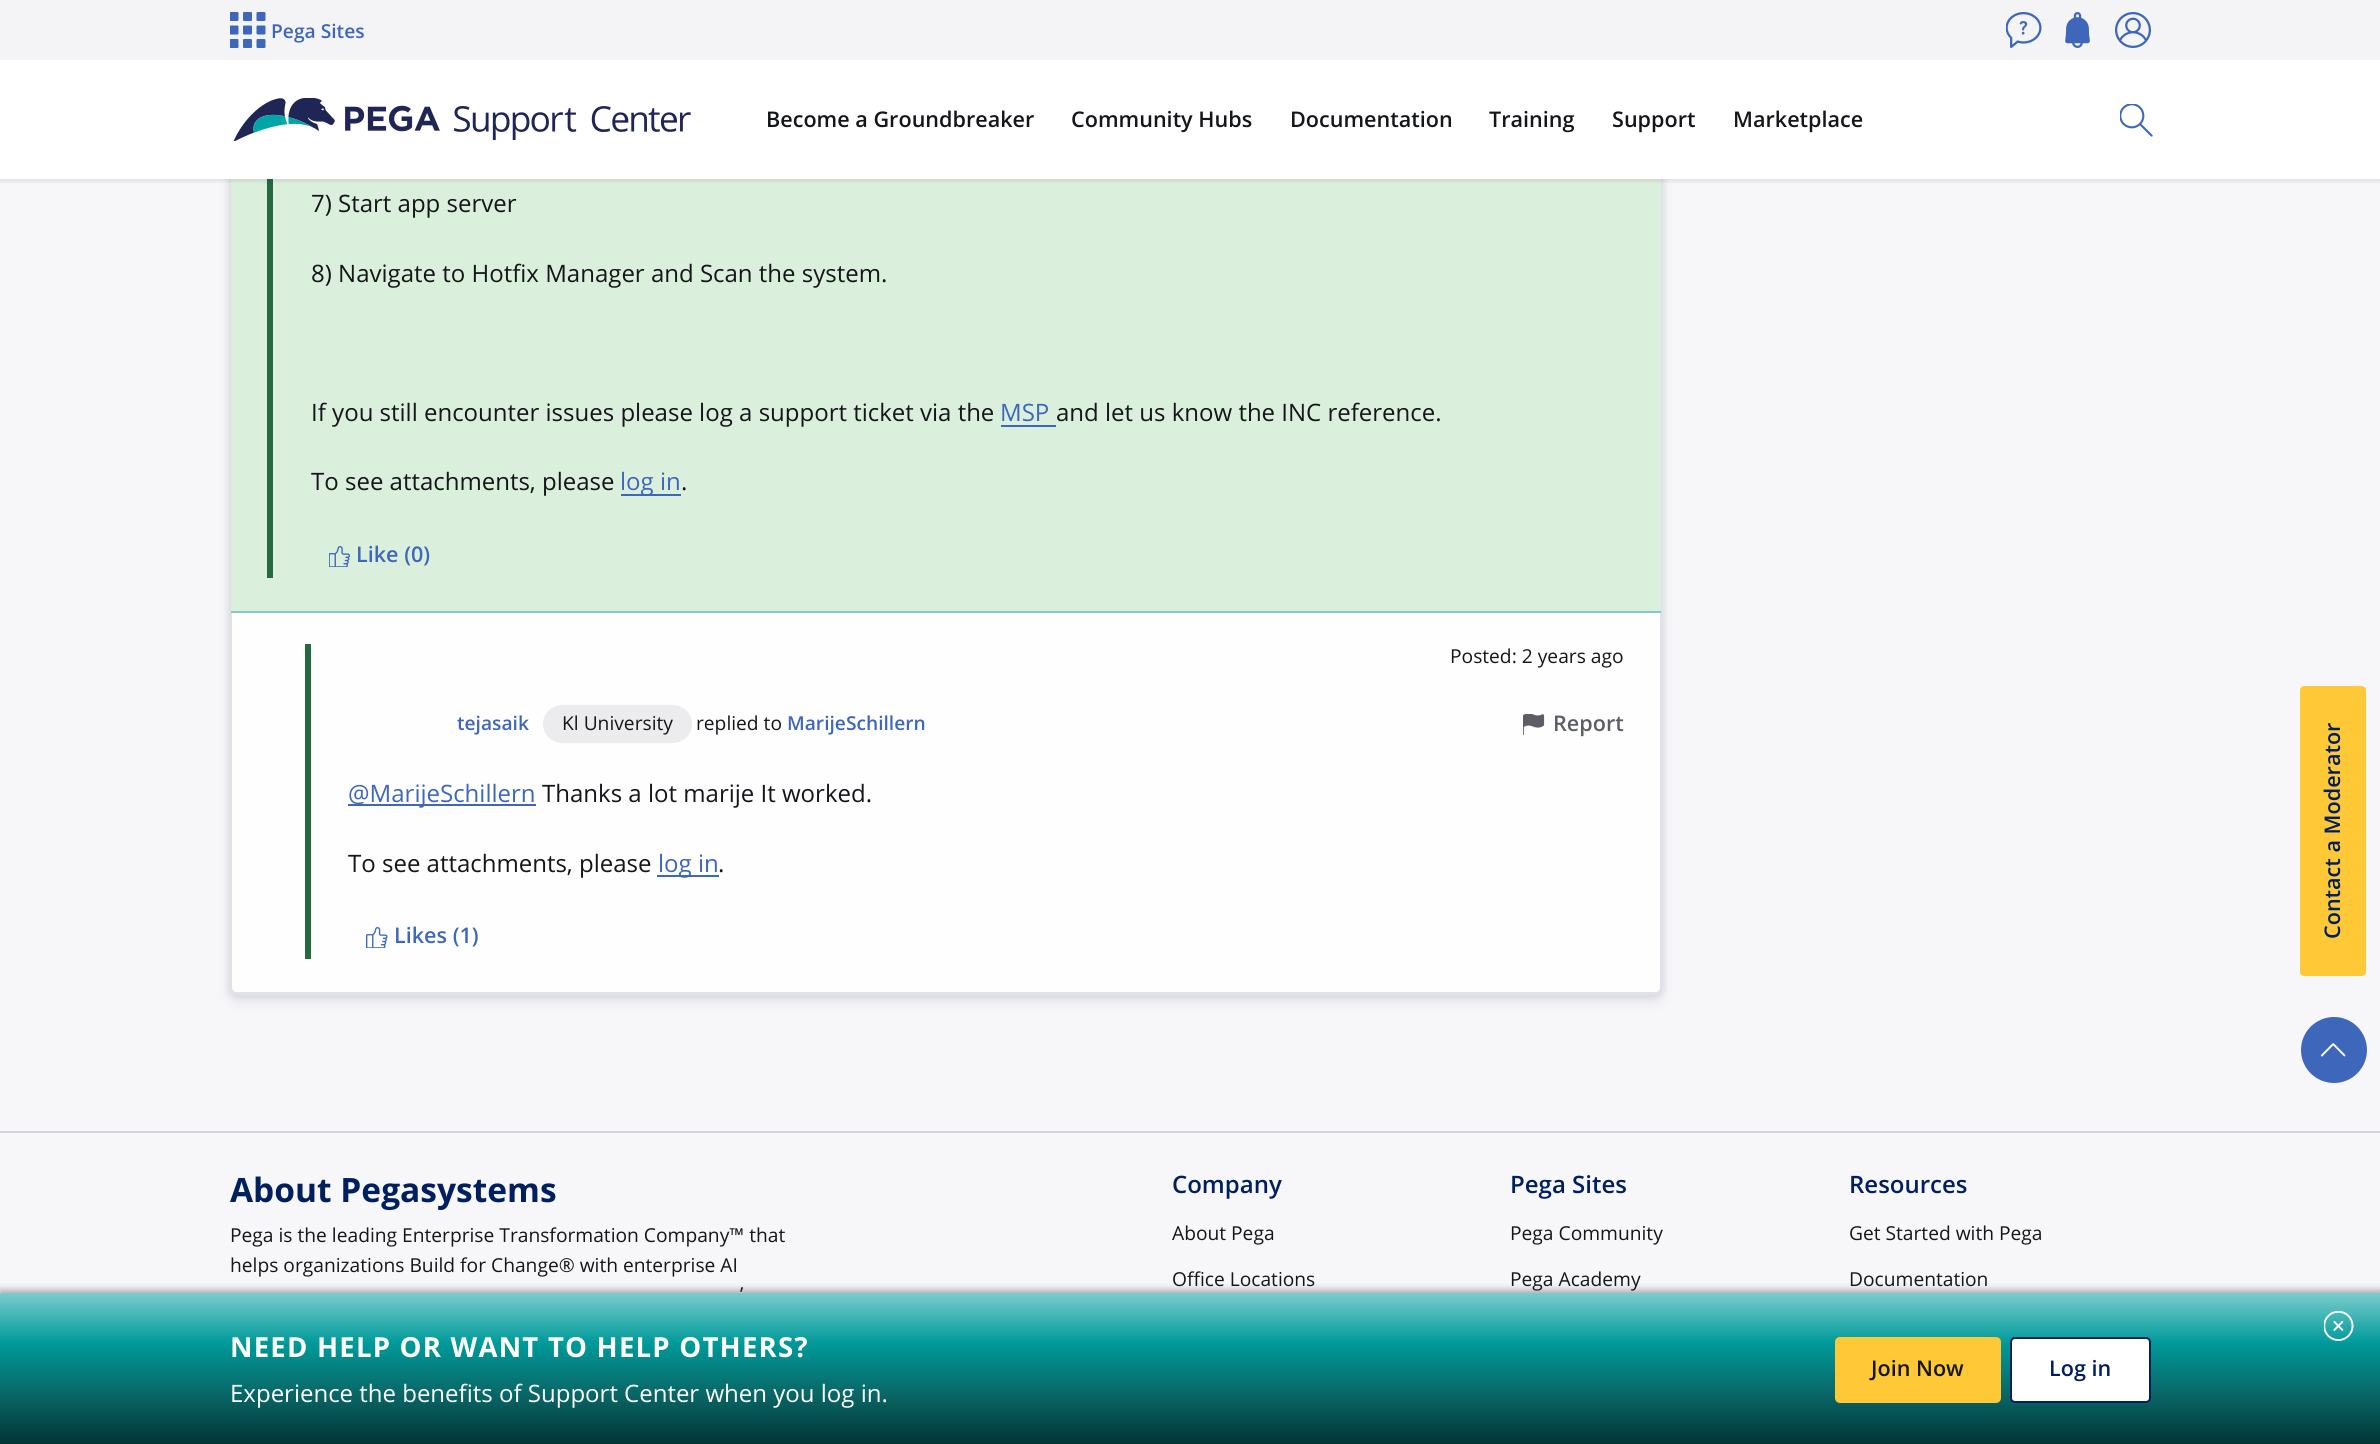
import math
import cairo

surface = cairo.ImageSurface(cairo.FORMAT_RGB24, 2380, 1444)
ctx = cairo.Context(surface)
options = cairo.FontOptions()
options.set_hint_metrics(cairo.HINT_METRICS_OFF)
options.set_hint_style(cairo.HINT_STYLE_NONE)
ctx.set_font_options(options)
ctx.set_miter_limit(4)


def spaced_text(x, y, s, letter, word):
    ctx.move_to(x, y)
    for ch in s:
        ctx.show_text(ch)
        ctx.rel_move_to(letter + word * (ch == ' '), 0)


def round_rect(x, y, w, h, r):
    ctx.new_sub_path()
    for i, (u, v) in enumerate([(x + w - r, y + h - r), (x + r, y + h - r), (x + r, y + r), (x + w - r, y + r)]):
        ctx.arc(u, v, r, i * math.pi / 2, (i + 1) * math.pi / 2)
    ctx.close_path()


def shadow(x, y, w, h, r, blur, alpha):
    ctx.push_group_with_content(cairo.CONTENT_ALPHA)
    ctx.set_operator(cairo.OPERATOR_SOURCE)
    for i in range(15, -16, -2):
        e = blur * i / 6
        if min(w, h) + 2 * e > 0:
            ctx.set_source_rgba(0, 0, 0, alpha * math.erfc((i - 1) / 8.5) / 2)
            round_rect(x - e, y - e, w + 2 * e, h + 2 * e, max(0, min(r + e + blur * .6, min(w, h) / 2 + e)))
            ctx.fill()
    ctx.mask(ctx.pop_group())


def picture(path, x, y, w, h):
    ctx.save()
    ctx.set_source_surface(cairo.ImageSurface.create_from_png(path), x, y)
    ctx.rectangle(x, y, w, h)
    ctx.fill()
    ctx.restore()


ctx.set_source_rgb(0.965, 0.965, 0.976)
ctx.paint()
ctx.set_source_rgb(0.165, 0.176, 0.267)
shadow(230, -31, 1432, 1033, 8, 7.5, 0.08)
shadow(228, -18, 1436, 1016, 9, 3, 0.1)
ctx.set_source_rgb(0.996, 0.996, 1)
round_rect(230, -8, 1432, 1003, 8)
ctx.fill()
round_rect(231, -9, 1430, 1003, 7)
ctx.set_source_rgba(0.173, 0.239, 0.376, 0.15)
ctx.stroke()
ctx.set_source_rgb(0.859, 0.941, 0.863)
ctx.rectangle(231, 179, 1430, 432)
ctx.fill()
ctx.set_source_rgb(0.145, 0.412, 0.251)
ctx.rectangle(267, 179, 6, 399)
ctx.fill()
ctx.set_source_rgb(0.024, 0.039, 0.141)
shadow(-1, 0, 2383, 182, 0, 1.5, 0.08)
ctx.set_source_rgb(1, 1, 1)
ctx.rectangle(0, 60, 2380, 119)
ctx.fill()
ctx.set_source_rgb(0.957, 0.957, 0.961)
ctx.rectangle(0, 0, 2380, 60)
ctx.fill()
picture("img1.png", 230, 12, 36, 36)
ctx.select_font_face("Open Sans SemiBold")
ctx.set_font_size(19.2)
ctx.set_source_rgb(0.243, 0.404, 0.733)
ctx.move_to(271, 38)
ctx.show_text("Pega Sites")
picture("img2.png", 2006, 12, 36, 36)
picture("img3.png", 2065, 12, 25, 36)
picture("img4.png", 2115, 12, 36, 36)
ctx.set_font_size(21.6)
ctx.set_source_rgb(0.082, 0.086, 0.098)
ctx.move_to(766, 127)
ctx.show_text("Become a Groundbreaker")
ctx.move_to(1071, 127)
ctx.show_text("Community Hubs")
ctx.move_to(1290, 127)
ctx.show_text("Documentation")
ctx.move_to(1489, 127)
ctx.show_text("Training")
ctx.move_to(1612, 127)
ctx.show_text("Support")
ctx.move_to(1733, 127)
ctx.show_text("Marketplace")
picture("img5.png", 2120, 104, 33, 33)
picture("img6.png", 233, 98, 458, 43)
ctx.set_source_rgb(0.525, 0.792, 0.776)
ctx.rectangle(231, 611, 1430, 2)
ctx.fill()
ctx.select_font_face("Open Sans")
ctx.set_font_size(24)
ctx.set_source_rgb(0.082, 0.086, 0.098)
ctx.move_to(311, 212)
ctx.show_text("7) Start app server")
ctx.move_to(311, 282)
ctx.show_text("8) Navigate to Hotfix Manager and Scan the system.")
ctx.move_to(311, 421)
ctx.show_text("If you still encounter issues please log a support ticket via the")
ctx.set_source_rgb(0.243, 0.404, 0.733)
ctx.move_to(1000, 421)
ctx.show_text("MSP")
ctx.rectangle(1001, 425, 55, 2)
ctx.fill()
ctx.set_source_rgb(0.082, 0.086, 0.098)
ctx.move_to(1056, 421)
ctx.show_text("and let us know the INC reference.")
ctx.move_to(311, 490)
ctx.show_text("To see attachments, please")
ctx.set_source_rgb(0.243, 0.404, 0.733)
ctx.rectangle(621, 494, 60, 2)
ctx.fill()
ctx.move_to(620, 490)
ctx.show_text("log in")
ctx.set_source_rgb(0.082, 0.086, 0.098)
ctx.move_to(681, 490)
ctx.show_text(".")
picture("img7.png", 329, 546, 22, 21)
ctx.select_font_face("Open Sans SemiBold")
ctx.set_font_size(21.6)
ctx.set_source_rgb(0.243, 0.404, 0.733)
ctx.move_to(356, 562)
ctx.show_text("Like (0)")
ctx.set_source_rgb(0.878, 0.886, 0.922)
ctx.rectangle(231, 992, 1430, 2)
ctx.fill()
ctx.set_source_rgb(0.145, 0.412, 0.251)
ctx.rectangle(305, 644, 6, 315)
ctx.fill()
ctx.select_font_face("Open Sans")
ctx.set_font_size(19.2)
ctx.set_source_rgb(0.082, 0.086, 0.098)
ctx.move_to(1450, 663)
ctx.show_text("Posted: 2 years ago")
ctx.select_font_face("Open Sans SemiBold")
ctx.set_source_rgb(0.243, 0.404, 0.733)
ctx.move_to(457, 730)
ctx.show_text("tejasaik")
ctx.set_source_rgb(0.925, 0.925, 0.937)
round_rect(543, 705, 149, 38, 19)
ctx.fill()
ctx.select_font_face("Open Sans")
ctx.set_source_rgb(0.082, 0.086, 0.098)
ctx.move_to(562, 730)
ctx.show_text("Kl University")
ctx.move_to(696, 730)
ctx.show_text("replied to")
ctx.select_font_face("Open Sans SemiBold")
ctx.set_source_rgb(0.243, 0.404, 0.733)
ctx.move_to(787, 730)
ctx.show_text("MarijeSchillern")
picture("img8.png", 1523, 714, 22, 21)
ctx.set_font_size(21.6)
ctx.set_source_rgb(0.361, 0.365, 0.4)
ctx.move_to(1553, 731)
ctx.show_text("Report")
ctx.set_source_rgb(0.243, 0.404, 0.733)
ctx.rectangle(348, 804, 188, 2)
ctx.fill()
ctx.select_font_face("Open Sans")
ctx.set_font_size(24)
ctx.move_to(348, 802)
ctx.show_text("@MarijeSchillern")
ctx.set_source_rgb(0.082, 0.086, 0.098)
ctx.move_to(542, 802)
ctx.show_text("Thanks a lot marije It worked.")
ctx.move_to(348, 872)
ctx.show_text("To see attachments, please")
ctx.set_source_rgb(0.243, 0.404, 0.733)
ctx.rectangle(657, 875, 62, 2)
ctx.fill()
ctx.move_to(658, 872)
ctx.show_text("log in")
ctx.set_source_rgb(0.082, 0.086, 0.098)
ctx.move_to(718, 872)
ctx.show_text(".")
picture("img9.png", 366, 927, 22, 21)
ctx.select_font_face("Open Sans SemiBold")
ctx.set_font_size(21.6)
ctx.set_source_rgb(0.243, 0.404, 0.733)
ctx.move_to(394, 943)
ctx.show_text("Likes (1)")
ctx.set_source_rgb(1, 0.784, 0.212)
ctx.new_path()
ctx.move_to(2300, 972)
ctx.line_to(2300, 690)
ctx.curve_to(2300, 688, 2302, 686, 2304, 686)
ctx.line_to(2361, 686)
ctx.curve_to(2364, 686, 2366, 688, 2366, 690)
ctx.line_to(2366, 972)
ctx.curve_to(2366, 974, 2364, 976, 2361, 976)
ctx.line_to(2304, 976)
ctx.curve_to(2302, 976, 2300, 974, 2300, 972)
ctx.close_path()
ctx.fill()
ctx.set_source_rgb(0, 0.122, 0.373)
ctx.save()
ctx.translate(2340, 939)
ctx.rotate(-90 * math.pi / 180)
ctx.move_to(0, 0)
ctx.show_text("Contact a Moderator")
ctx.restore()
ctx.set_source_rgb(0.243, 0.404, 0.733)
ctx.new_path()
ctx.arc(2334, 1050, 33, 0, 2 * math.pi)
ctx.fill()
picture("img10.png", 2320, 1043, 26, 14)
ctx.set_source_rgb(0.824, 0.835, 0.871)
ctx.rectangle(0, 1131, 2380, 2)
ctx.fill()
ctx.select_font_face("Open Sans", cairo.FONT_SLANT_NORMAL, cairo.FONT_WEIGHT_BOLD)
ctx.set_font_size(33.5)
ctx.set_source_rgb(0, 0.122, 0.373)
ctx.move_to(230, 1202)
ctx.show_text("About Pegasystems")
ctx.select_font_face("Open Sans")
ctx.set_font_size(19.2)
ctx.set_source_rgb(0.082, 0.086, 0.098)
ctx.move_to(230, 1242)
ctx.show_text("Pega is the leading Enterprise Transformation Company™ that")
ctx.move_to(230, 1272)
ctx.show_text("helps organizations Build for Change® with enterprise AI")
ctx.move_to(740, 1301)
ctx.show_text("’")
ctx.select_font_face("Open Sans SemiBold")
ctx.set_font_size(24)
ctx.set_source_rgb(0, 0.122, 0.373)
ctx.move_to(1172, 1193)
ctx.show_text("Company")
ctx.select_font_face("Open Sans")
ctx.set_font_size(19.2)
ctx.set_source_rgb(0.082, 0.086, 0.098)
ctx.move_to(1172, 1240)
ctx.show_text("About Pega")
ctx.move_to(1172, 1286)
ctx.show_text("Office Locations")
ctx.select_font_face("Open Sans SemiBold")
ctx.set_font_size(24)
ctx.set_source_rgb(0, 0.122, 0.373)
ctx.move_to(1510, 1193)
ctx.show_text("Pega Sites")
ctx.select_font_face("Open Sans")
ctx.set_font_size(19.2)
ctx.set_source_rgb(0.082, 0.086, 0.098)
ctx.move_to(1510, 1240)
ctx.show_text("Pega Community")
ctx.move_to(1510, 1286)
ctx.show_text("Pega Academy")
ctx.select_font_face("Open Sans SemiBold")
ctx.set_font_size(24)
ctx.set_source_rgb(0, 0.122, 0.373)
ctx.move_to(1849, 1193)
ctx.show_text("Resources")
ctx.select_font_face("Open Sans")
ctx.set_font_size(19.2)
ctx.set_source_rgb(0.082, 0.086, 0.098)
ctx.move_to(1849, 1240)
ctx.show_text("Get Started with Pega")
ctx.move_to(1849, 1286)
ctx.show_text("Documentation")
ctx.set_source_rgb(0.082, 0.086, 0.098)
shadow(0, 1290, 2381, 152, 0, 3.5, 0.35)
gradient = cairo.LinearGradient(1190, 1293, 1190, 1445)
gradient.add_color_stop_rgba(0, 0.478, 0.804, 0.804, 1)
gradient.add_color_stop_rgba(0.33, 0, 0.6, 0.6, 1)
gradient.add_color_stop_rgba(0.67, 0.039, 0.4, 0.4, 1)
gradient.add_color_stop_rgba(1, 0, 0.2, 0.2, 1)
ctx.set_source(gradient)
ctx.rectangle(0, 1293, 2380, 151)
ctx.fill()
picture("img11.png", 2324, 1311, 30, 30)
ctx.select_font_face("Open Sans", cairo.FONT_SLANT_NORMAL, cairo.FONT_WEIGHT_BOLD)
ctx.set_font_size(27.6)
ctx.set_source_rgb(1, 1, 1)
spaced_text(230, 1357, "NEED HELP OR WANT TO HELP OTHERS?", 1.2, 0)
ctx.select_font_face("Open Sans")
ctx.set_font_size(24)
ctx.move_to(230, 1402)
ctx.show_text("Experience the benefits of Support Center when you log in.")
ctx.set_source_rgb(1, 0.784, 0.212)
round_rect(1835, 1337, 166, 66, 5)
ctx.fill()
ctx.select_font_face("Open Sans SemiBold")
ctx.set_font_size(21.6)
ctx.set_source_rgb(0.082, 0.086, 0.098)
ctx.move_to(1871, 1376)
ctx.show_text("Join Now")
ctx.set_source_rgb(1, 1, 1)
round_rect(2011, 1338, 139, 64, 4)
ctx.fill_preserve()
ctx.set_source_rgb(0, 0.122, 0.373)
ctx.stroke()
ctx.move_to(2049, 1376)
ctx.show_text("Log in")
surface.write_to_png("page.png")
